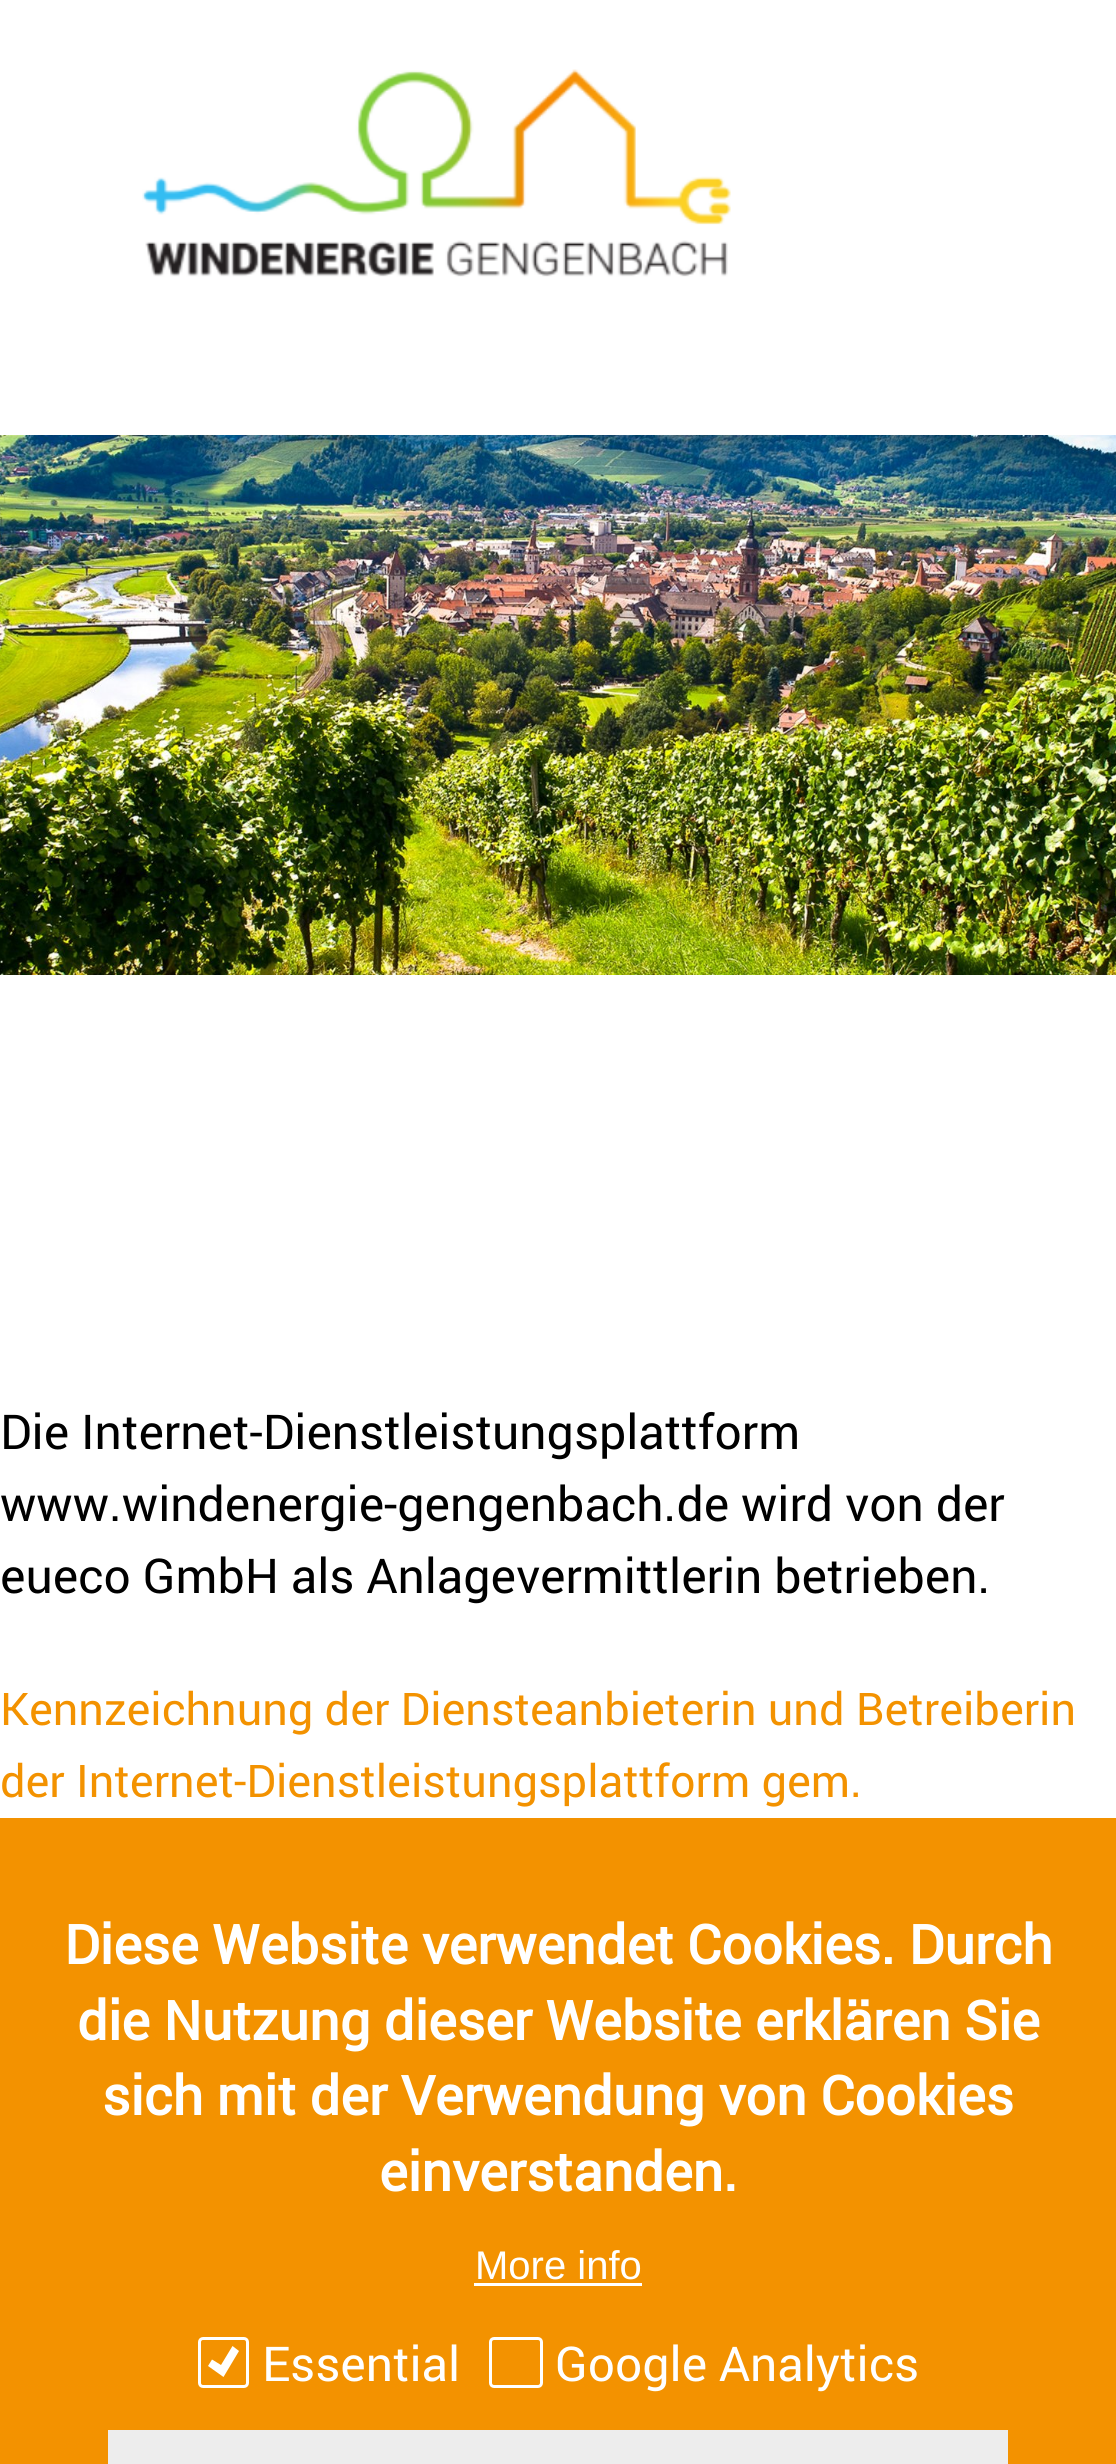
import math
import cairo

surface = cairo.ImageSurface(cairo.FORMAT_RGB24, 1116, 2464)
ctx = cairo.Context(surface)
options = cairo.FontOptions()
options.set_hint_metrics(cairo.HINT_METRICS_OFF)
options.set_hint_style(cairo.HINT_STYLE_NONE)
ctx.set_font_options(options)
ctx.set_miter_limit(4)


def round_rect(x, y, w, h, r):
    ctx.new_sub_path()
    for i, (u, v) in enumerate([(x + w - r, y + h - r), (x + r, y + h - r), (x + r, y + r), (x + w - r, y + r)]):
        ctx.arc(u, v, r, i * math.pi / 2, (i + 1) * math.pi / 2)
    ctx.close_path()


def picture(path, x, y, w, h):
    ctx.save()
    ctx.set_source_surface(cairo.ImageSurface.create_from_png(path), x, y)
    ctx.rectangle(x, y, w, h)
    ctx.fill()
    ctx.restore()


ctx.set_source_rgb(1, 1, 1)
ctx.paint()
picture("img1.png", 142, 69, 589, 208)
picture("img2.png", 0, 435, 1116, 540)
ctx.select_font_face("roboto")
ctx.set_font_size(48)
ctx.set_source_rgb(0, 0, 0)
ctx.move_to(0, 1449)
ctx.show_text("Die Internet-Dienstleistungsplattform")
ctx.move_to(0, 1521)
ctx.show_text("www.windenergie-gengenbach.de wird von der")
ctx.move_to(0, 1593)
ctx.show_text("eueco GmbH als Anlagevermittlerin betrieben.")
ctx.set_font_size(45)
ctx.set_source_rgb(0.953, 0.573, 0)
ctx.move_to(0, 1725)
ctx.show_text("Kennzeichnung der Diensteanbieterin und Betreiberin")
ctx.move_to(0, 1797)
ctx.show_text("der Internet-Dienstleistungsplattform gem.")
ctx.rectangle(0, 1818, 1116, 646)
ctx.fill()
ctx.select_font_face("roboto", cairo.FONT_SLANT_NORMAL, cairo.FONT_WEIGHT_BOLD)
ctx.set_font_size(54)
ctx.set_source_rgb(1, 1, 1)
ctx.move_to(64, 1964)
ctx.show_text("Diese Website verwendet Cookies. Durch")
ctx.move_to(77, 2040)
ctx.show_text("die Nutzung dieser Website erklären Sie")
ctx.move_to(102, 2115)
ctx.show_text("sich mit der Verwendung von Cookies")
ctx.move_to(379, 2191)
ctx.show_text("einverstanden.")
ctx.select_font_face("Liberation Sans")
ctx.set_font_size(40)
ctx.move_to(475, 2279)
ctx.show_text("More info")
ctx.rectangle(474, 2283, 168, 3)
ctx.fill()
round_rect(199.5, 2338.5, 48, 48, 3.5)
ctx.set_line_width(3)
ctx.stroke()
ctx.new_path()
ctx.move_to(212, 2359.5)
ctx.line_to(221, 2365)
ctx.line_to(232.5, 2346)
ctx.line_to(239, 2351)
ctx.line_to(223.5, 2377)
ctx.line_to(208, 2366)
ctx.close_path()
ctx.fill()
ctx.select_font_face("roboto")
ctx.set_font_size(48)
ctx.move_to(262, 2381)
ctx.show_text("Essential")
round_rect(490.5, 2338.5, 51, 48, 3.5)
ctx.stroke()
ctx.move_to(555, 2381)
ctx.show_text("Google Analytics")
ctx.set_source_rgb(0.929, 0.929, 0.929)
ctx.rectangle(108, 2430, 900, 34)
ctx.fill()
surface.write_to_png("page.png")
